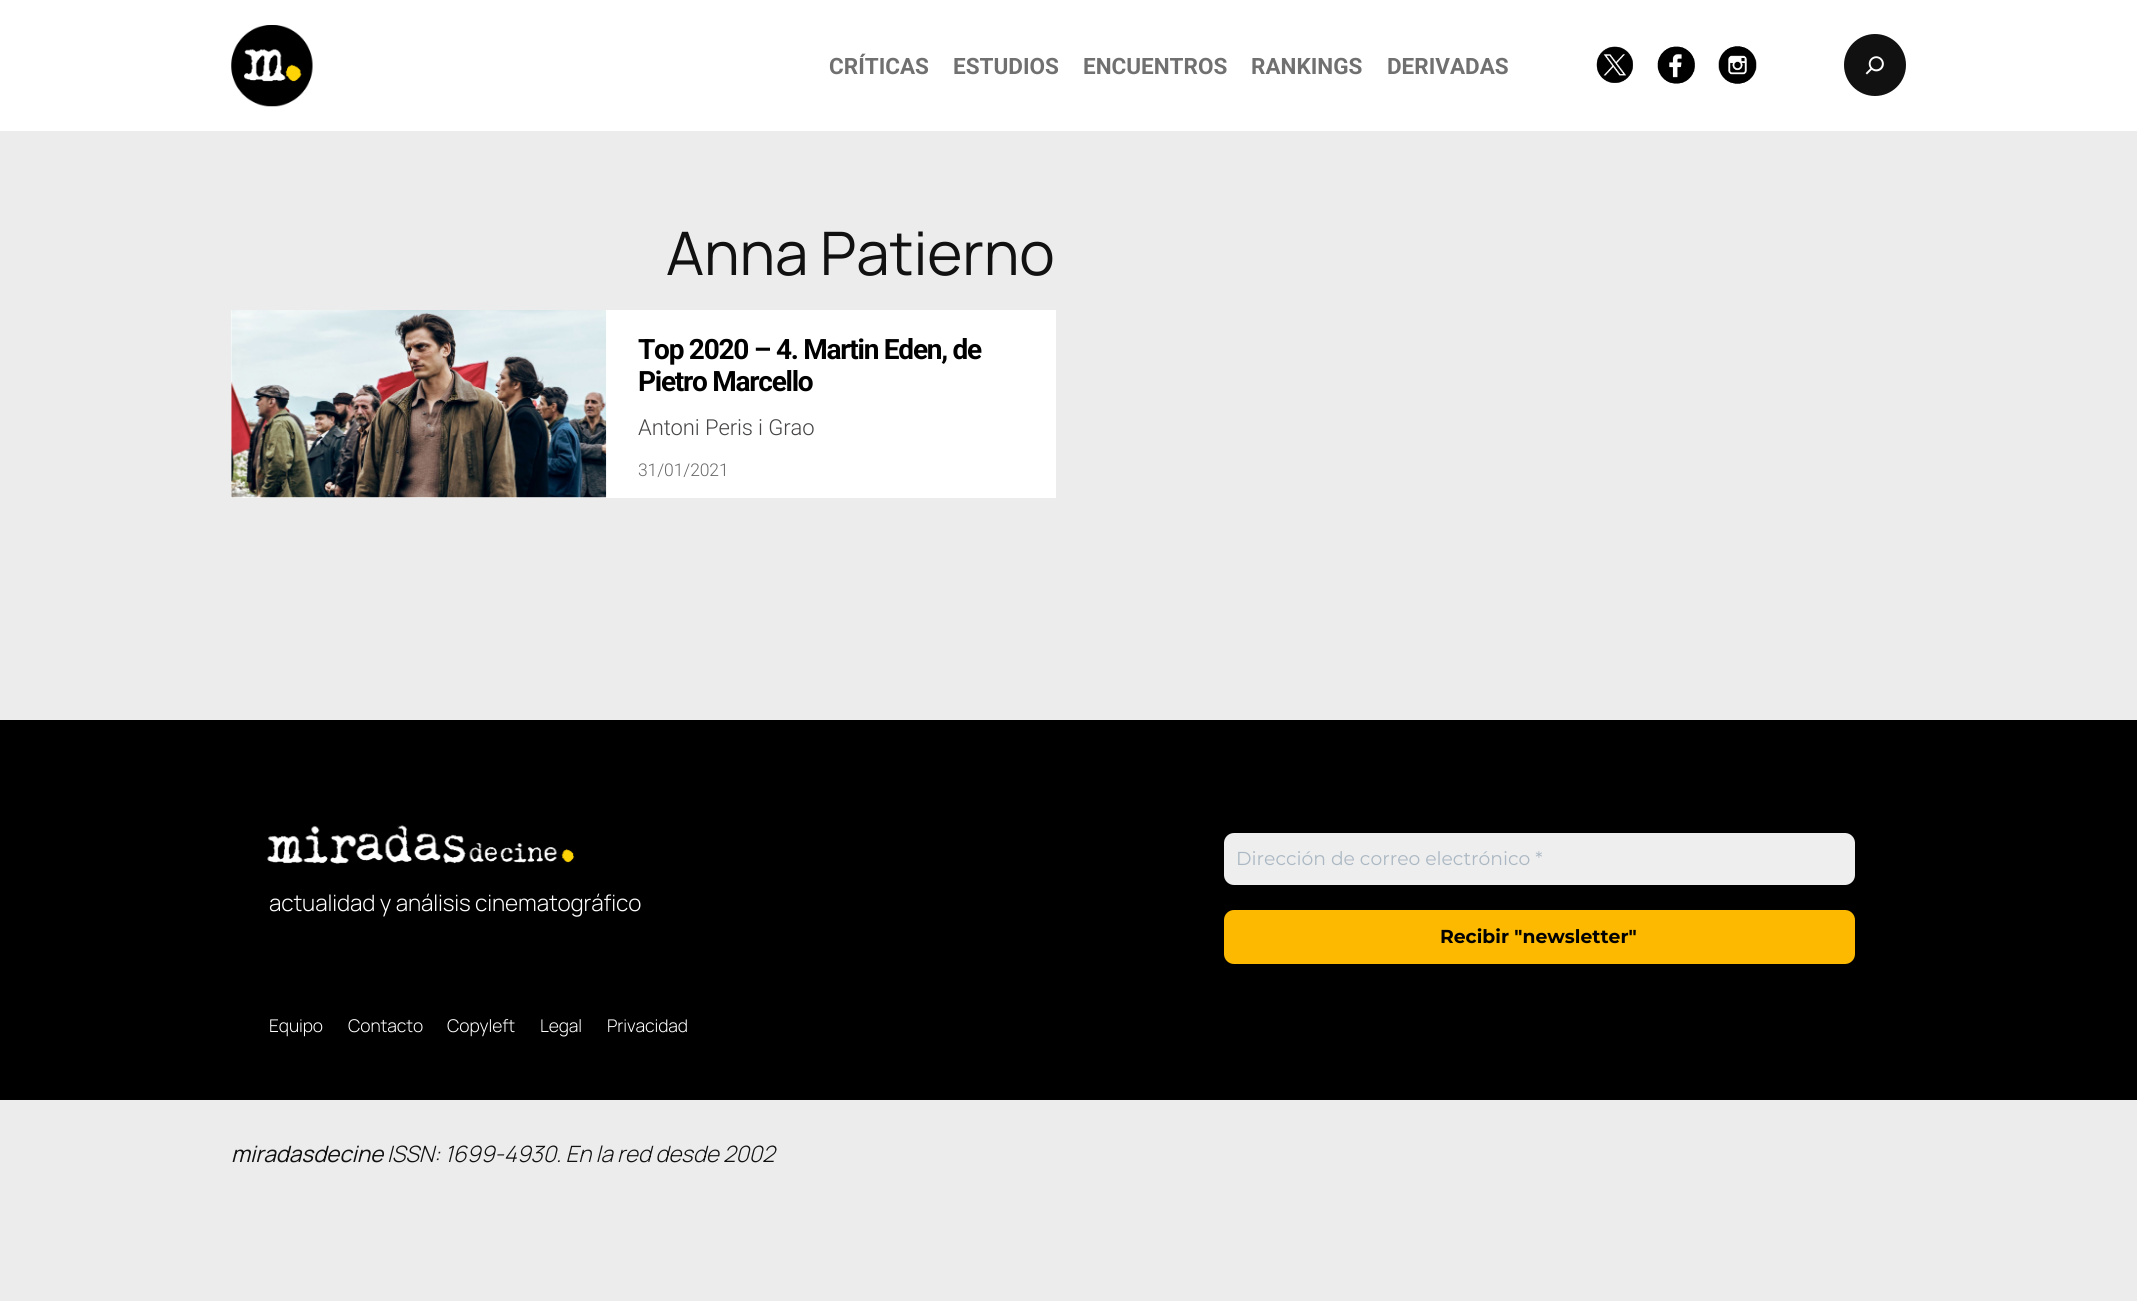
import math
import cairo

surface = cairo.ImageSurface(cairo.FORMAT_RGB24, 2137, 1301)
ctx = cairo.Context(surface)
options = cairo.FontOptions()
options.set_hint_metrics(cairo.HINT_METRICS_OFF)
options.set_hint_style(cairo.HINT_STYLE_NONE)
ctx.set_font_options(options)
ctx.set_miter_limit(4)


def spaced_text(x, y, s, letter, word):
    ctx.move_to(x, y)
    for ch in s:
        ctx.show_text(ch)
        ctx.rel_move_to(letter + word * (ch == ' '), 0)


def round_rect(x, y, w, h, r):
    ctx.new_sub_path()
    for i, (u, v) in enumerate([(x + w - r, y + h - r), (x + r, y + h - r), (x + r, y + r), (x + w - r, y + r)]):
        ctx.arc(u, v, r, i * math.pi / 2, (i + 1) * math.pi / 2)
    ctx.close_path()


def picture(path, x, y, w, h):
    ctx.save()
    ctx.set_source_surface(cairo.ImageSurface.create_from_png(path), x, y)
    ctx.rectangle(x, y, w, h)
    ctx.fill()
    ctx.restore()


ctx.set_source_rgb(0.922, 0.922, 0.922)
ctx.paint()
ctx.set_source_rgb(1, 1, 1)
ctx.rectangle(0, 0, 2137, 131)
ctx.fill()
picture("img1.png", 231, 25, 82, 82)
ctx.select_font_face("Roboto", cairo.FONT_SLANT_NORMAL, cairo.FONT_WEIGHT_BOLD)
ctx.set_font_size(22.5)
ctx.set_source_rgb(0.439, 0.439, 0.439)
ctx.move_to(829, 74)
ctx.show_text("CRÍTICAS")
ctx.move_to(953, 74)
ctx.show_text("ESTUDIOS")
ctx.move_to(1083, 74)
ctx.show_text("ENCUENTROS")
ctx.move_to(1251, 74)
ctx.show_text("RANKINGS")
ctx.move_to(1387, 74)
ctx.show_text("DERIVADAS")
picture("img2.png", 1596, 46, 37, 37)
picture("img3.png", 1657, 46, 38, 38)
picture("img4.png", 1718, 46, 39, 38)
ctx.set_source_rgb(0.067, 0.067, 0.067)
ctx.arc(1875, 65, 31, 0, 2 * math.pi)
ctx.fill()
picture("img5.png", 1865, 56, 19, 19)
ctx.select_font_face("Manrope")
ctx.set_font_size(60)
spaced_text(666, 275, "Anna Patierno", -0.1, 0)
ctx.set_source_rgb(1, 1, 1)
ctx.rectangle(231, 310, 825, 188)
ctx.fill()
picture("img6.png", 231, 310, 376, 188)
ctx.select_font_face("Roboto", cairo.FONT_SLANT_NORMAL, cairo.FONT_WEIGHT_BOLD)
ctx.set_font_size(28)
ctx.set_source_rgb(0, 0, 0)
spaced_text(638, 359, "Top 2020 – 4. Martin Eden, de", -1.25, 0)
spaced_text(638, 391, "Pietro Marcello", -1.25, 0)
ctx.select_font_face("Roboto Light")
ctx.set_font_size(22)
ctx.set_source_rgb(0.275, 0.267, 0.267)
spaced_text(638, 435, "Antoni Peris i Grao", -0.1, 0)
ctx.set_font_size(17.5)
ctx.set_source_rgb(0.408, 0.408, 0.408)
spaced_text(638, 476, "31/01/2021", -0.1, 0)
ctx.set_source_rgb(0, 0, 0)
ctx.rectangle(0, 720, 2137, 380)
ctx.fill()
picture("img7.png", 267, 825, 308, 39)
ctx.select_font_face("Manrope Light")
ctx.set_font_size(22.5)
ctx.set_source_rgb(1, 1, 1)
spaced_text(269, 911, "actualidad y análisis cinematográfico", -0.1, 0)
ctx.set_source_rgb(0.933, 0.933, 0.933)
round_rect(1224, 833, 631, 52, 10)
ctx.fill()
ctx.select_font_face("Montserrat")
ctx.set_font_size(18.75)
ctx.set_source_rgb(0.671, 0.722, 0.765)
ctx.move_to(1236, 865)
ctx.show_text("Dirección de correo electrónico *")
ctx.set_source_rgb(0.988, 0.725, 0)
round_rect(1224, 910, 631, 54, 10)
ctx.fill()
ctx.select_font_face("Montserrat", cairo.FONT_SLANT_NORMAL, cairo.FONT_WEIGHT_BOLD)
ctx.set_source_rgb(0, 0, 0)
ctx.move_to(1440, 943)
ctx.show_text("Recibir \"newsletter\"")
ctx.select_font_face("Manrope Light")
ctx.set_font_size(17.5)
ctx.set_source_rgb(1, 1, 1)
spaced_text(269, 1032, "Equipo", -0.1, 0)
spaced_text(348, 1032, "Contacto", -0.1, 0)
spaced_text(447, 1032, "Copyleft", -0.1, 0)
spaced_text(540, 1032, "Legal", -0.1, 0)
spaced_text(607, 1032, "Privacidad", -0.1, 0)
ctx.select_font_face("Manrope", cairo.FONT_SLANT_ITALIC)
ctx.set_font_size(22.5)
ctx.set_source_rgb(0.067, 0.067, 0.067)
spaced_text(231, 1162, "miradasdecine", -0.1, 0)
ctx.select_font_face("Manrope Light", cairo.FONT_SLANT_ITALIC)
spaced_text(387, 1162, "ISSN: 1699-4930. En la red desde 2002", -0.1, 0)
surface.write_to_png("page.png")
